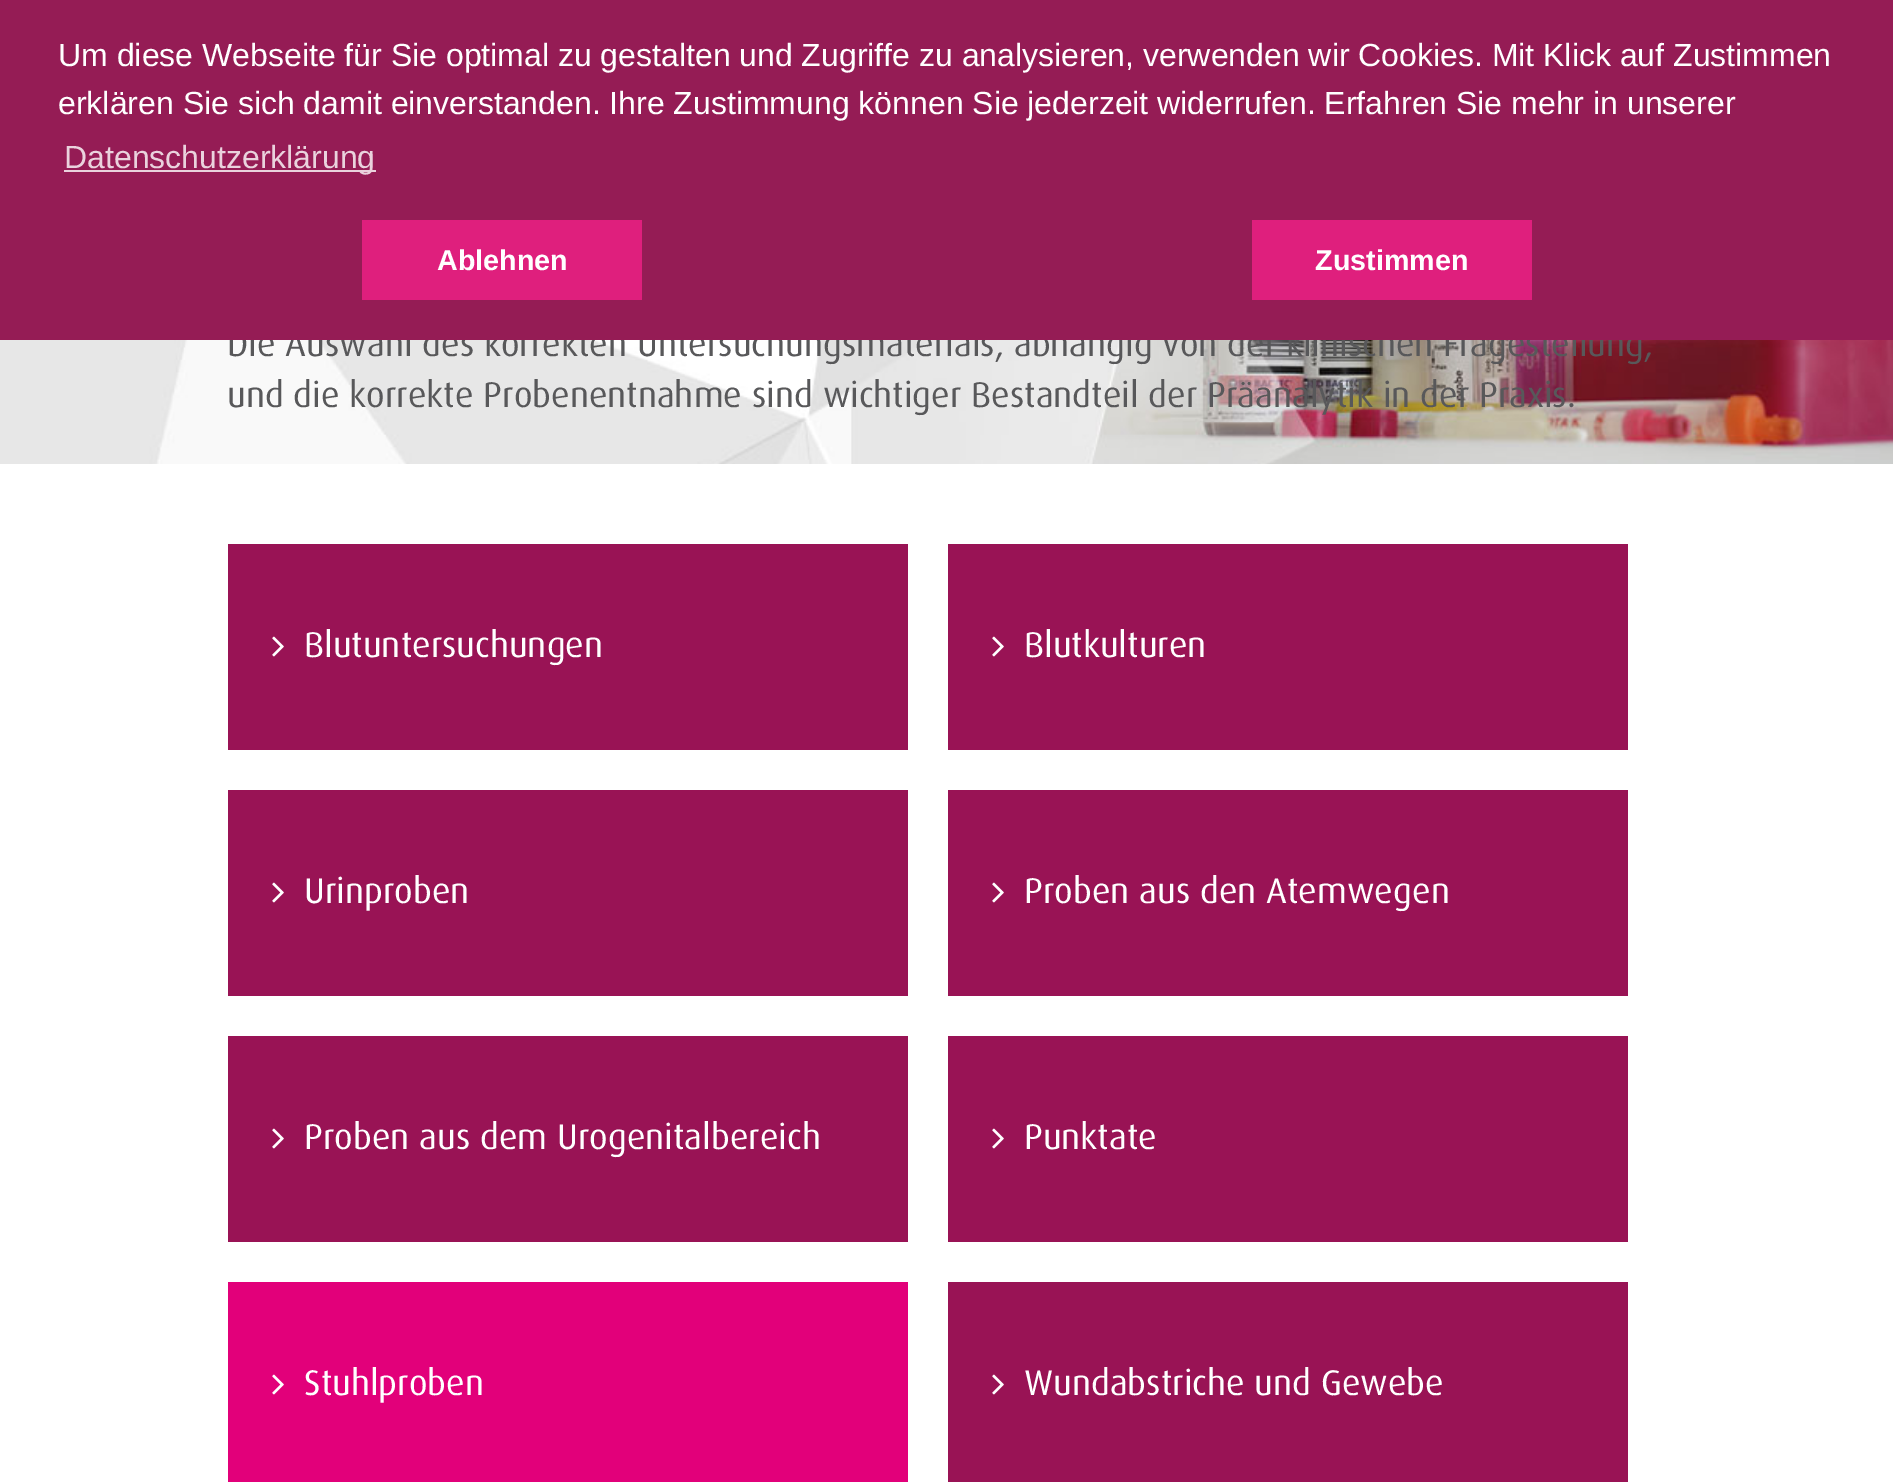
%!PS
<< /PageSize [1893 1482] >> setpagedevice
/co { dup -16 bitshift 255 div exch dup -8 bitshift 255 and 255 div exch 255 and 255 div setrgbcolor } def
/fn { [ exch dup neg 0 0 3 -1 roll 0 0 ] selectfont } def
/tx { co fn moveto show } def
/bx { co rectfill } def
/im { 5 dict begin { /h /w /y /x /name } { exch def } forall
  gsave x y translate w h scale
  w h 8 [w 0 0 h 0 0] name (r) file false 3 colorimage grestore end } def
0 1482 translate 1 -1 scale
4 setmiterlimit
0 0 1893 1482 16#FFFFFF bx
(media/1.raw) 0 340 1893 124 im
228 544 680 206 16#991355 bx
(media/2.raw) 272 636 12 21 im
948 544 680 206 16#991355 bx
(media/2.raw) 992 636 12 21 im
228 790 680 206 16#991355 bx
(media/2.raw) 272 882 12 21 im
948 790 680 206 16#991355 bx
(media/2.raw) 992 882 12 21 im
228 1036 680 206 16#991355 bx
(media/2.raw) 272 1128 12 21 im
948 1036 680 206 16#991355 bx
(media/2.raw) 992 1128 12 21 im
228 1282 680 200 16#E2007A bx
(media/3.raw) 272 1374 12 21 im
948 1282 680 200 16#991355 bx
(media/2.raw) 992 1374 12 21 im
(Die Auswahl des korrekten Untersuchungsmaterials, abhängig von der klinischen Fragestellung,) 227 356 /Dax-Regular 35.7 16#58585A tx
0 0 1893 340 16#951C55 bx
64 170 312 2 16#EAD2DD bx
(Datenschutzerklärung) 64 168 /LiberationSans-Regular 32 16#EAD2DD tx
1252 220 280 80 16#DF1F7D bx
(Zustimmen) 1315 270 /LiberationSans-Bold 28.75 16#FFFFFF tx
362 220 280 80 16#DF1F7D bx
(Ablehnen) 437 270 /LiberationSans-Bold 28.75 16#FFFFFF tx
(erklären Sie sich damit einverstanden. Ihre Zustimmung können Sie jederzeit widerrufen. Erfahren Sie mehr in unserer) 58 114 /LiberationSans-Regular 32 16#FFFFFF tx
(Um diese Webseite für Sie optimal zu gestalten und Zugriffe zu analysieren, verwenden wir Cookies. Mit Klick auf Zustimmen) 58 66 /LiberationSans-Regular 32 16#FFFFFF tx
(und die korrekte Probenentnahme sind wichtiger Bestandteil der Präanalytik in der Praxis.) 227 407 /Dax-Regular 35.7 16#58585A tx
(Blutuntersuchungen) 304 657 /Dax-Regular 35.7 16#FFFFFF tx
(Blutkulturen) 1024 657 /Dax-Regular 35.7 16#FFFFFF tx
(Urinproben) 304 903 /Dax-Regular 35.7 16#FFFFFF tx
(Proben aus den Atemwegen) 1024 903 /Dax-Regular 35.7 16#FFFFFF tx
(Proben aus dem Urogenitalbereich) 304 1149 /Dax-Regular 35.7 16#FFFFFF tx
(Punktate) 1024 1149 /Dax-Regular 35.7 16#FFFFFF tx
(Stuhlproben) 304 1395 /Dax-Regular 35.7 16#FFFFFF tx
(Wundabstriche und Gewebe) 1024 1395 /Dax-Regular 35.7 16#FFFFFF tx
showpage
